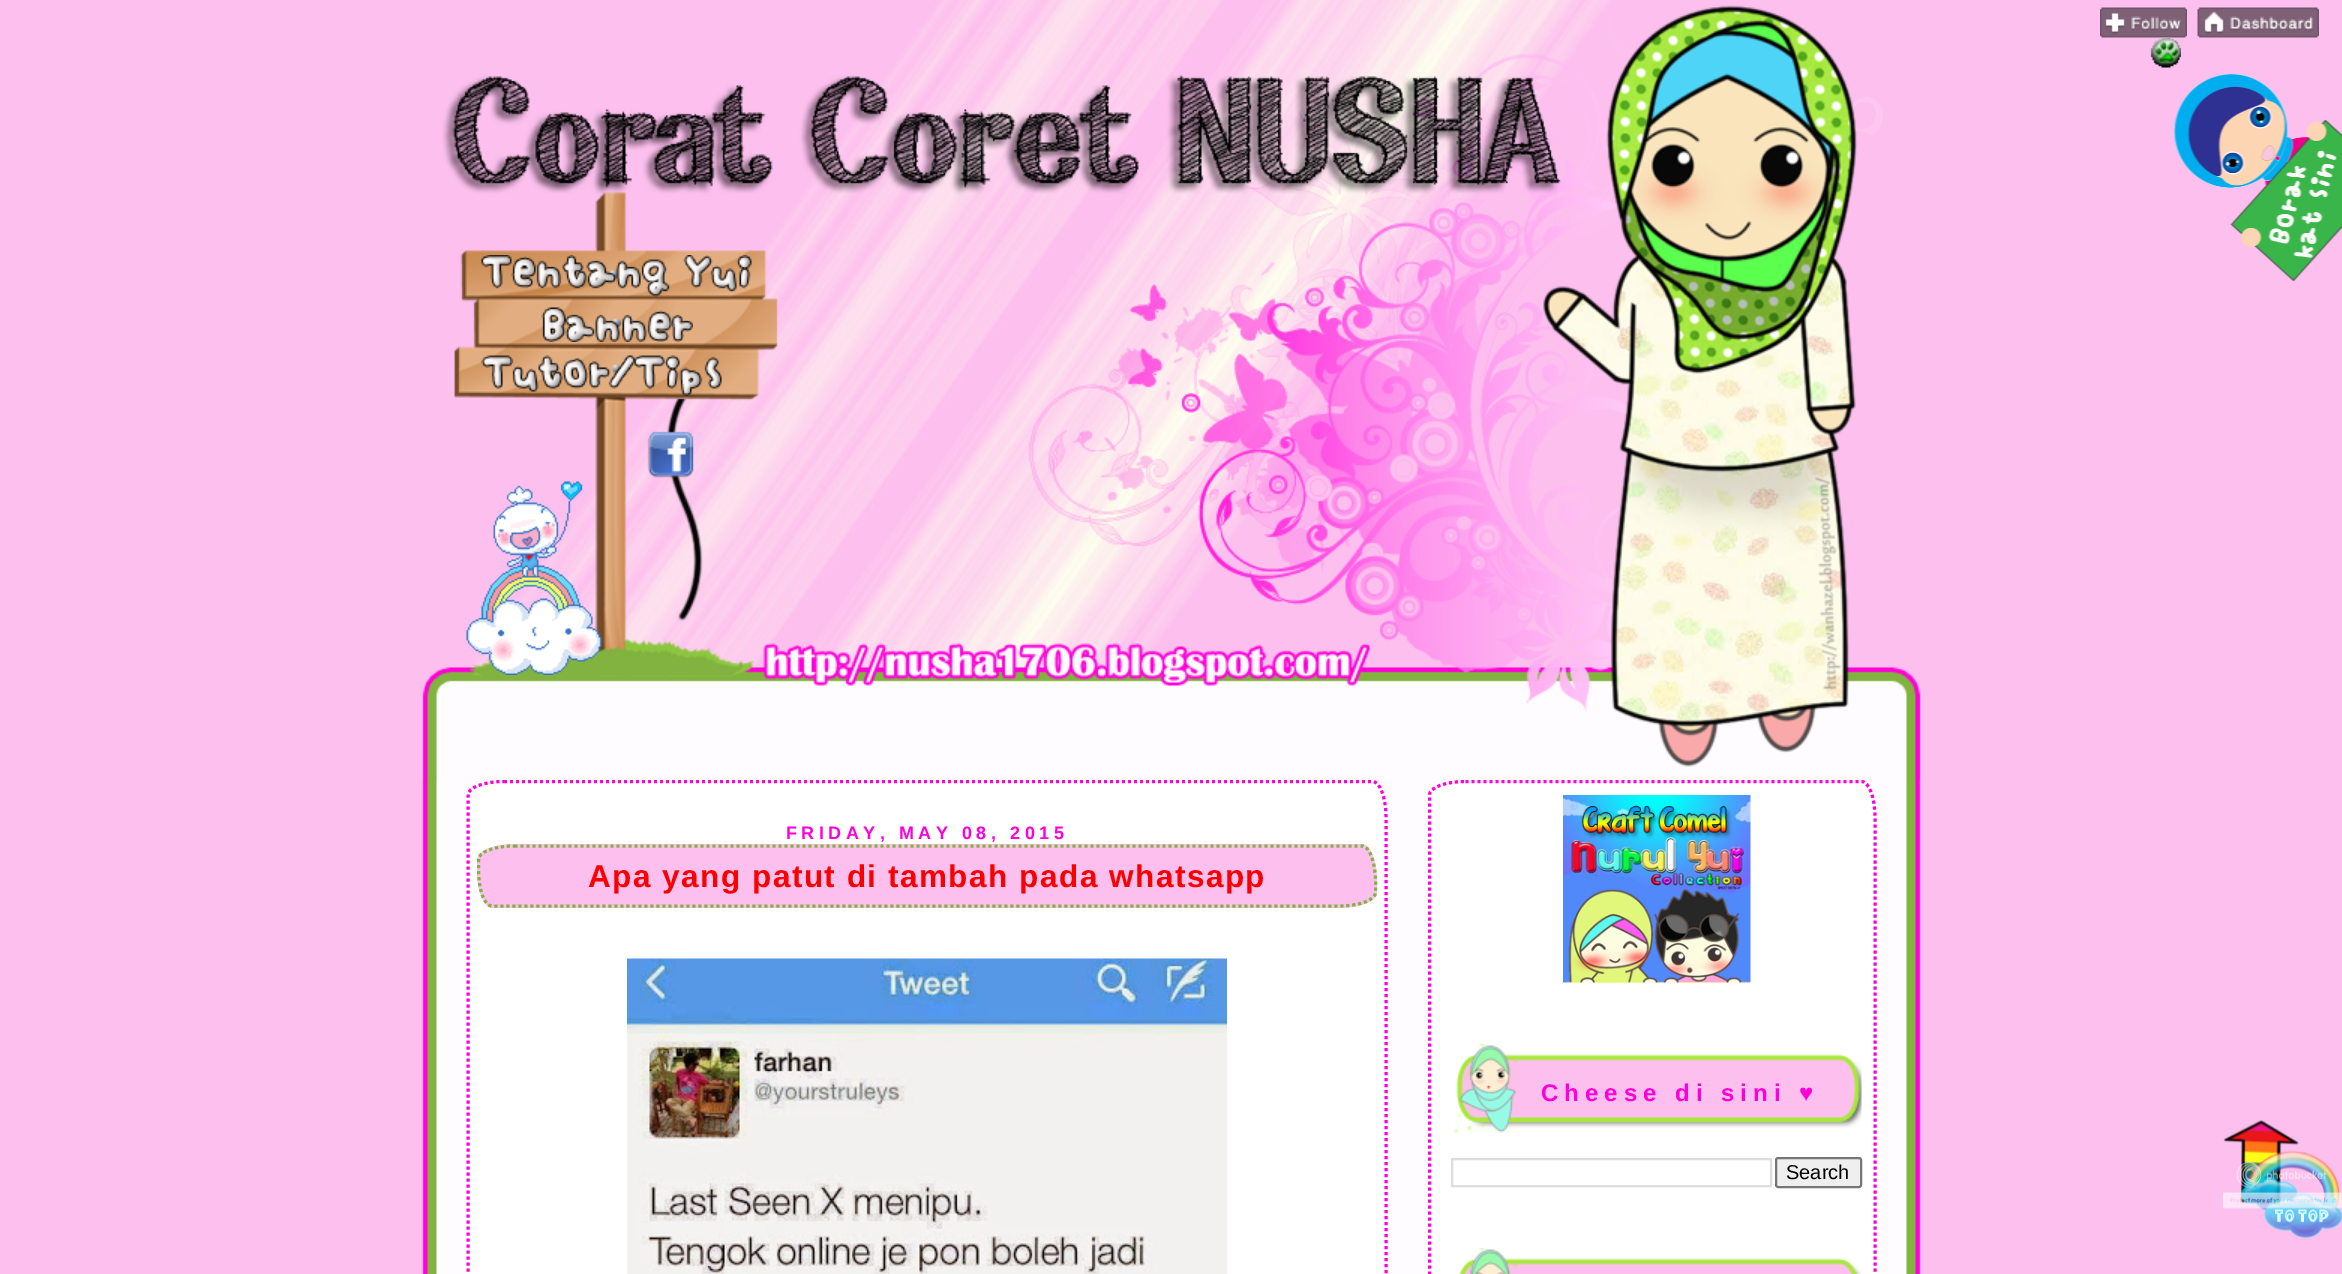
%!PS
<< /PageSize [2342 1274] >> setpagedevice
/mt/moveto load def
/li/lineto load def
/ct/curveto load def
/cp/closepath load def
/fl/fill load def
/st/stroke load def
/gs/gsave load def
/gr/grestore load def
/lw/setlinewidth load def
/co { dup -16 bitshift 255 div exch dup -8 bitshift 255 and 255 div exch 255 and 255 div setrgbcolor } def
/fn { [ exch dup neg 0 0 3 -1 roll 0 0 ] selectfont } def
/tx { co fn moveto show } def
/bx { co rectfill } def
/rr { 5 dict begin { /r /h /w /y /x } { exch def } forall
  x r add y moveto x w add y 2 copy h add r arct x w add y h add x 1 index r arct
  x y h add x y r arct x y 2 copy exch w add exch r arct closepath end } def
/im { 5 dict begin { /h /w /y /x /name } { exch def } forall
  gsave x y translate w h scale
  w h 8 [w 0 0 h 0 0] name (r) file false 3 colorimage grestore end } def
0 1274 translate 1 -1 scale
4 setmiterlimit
0 0 2342 1274 16#FDC0EE bx
(media/1.raw) 422 780 1499 494 im
(media/2.raw) 422 0 1499 780 im
(media/3.raw) 481 255 271 42 im
(media/4.raw) 541 307 152 35 im
(media/5.raw) 481 355 241 41 im
(media/6.raw) 647 431 47 47 im
(media/7.raw) 466 481 136 194 im
(media/11.raw) 2100 7 87 31 im
(media/8.raw) 2150 37 31 31 im
(media/9.raw) 2173 74 169 207 im
16#FFFFFF co
504 780 mt 1372 780 li 1381 780 1388 797 1388 818 ct 1388 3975 li 1388 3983 1371 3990 1350 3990 ct 482 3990 li 473 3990 466 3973 466 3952 ct 466 795 li 466 787 483 780 504 780 ct cp fl
16#FF00D8 co
3 lw
[3 3] 0 setdash
504 781.5 mt 1372.5 781.5 li 1380 781.5 1386 797.5 1386 817.5 ct 1386 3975 li 1386 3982.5 1370 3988.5 1350 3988.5 ct 481.5 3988.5 li 474 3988.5 468 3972.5 468 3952.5 ct 468 795 li 468 787.5 484 781.5 504 781.5 ct cp st
16#FDC0EE co
514 844 mt 1362 844 li 1370 844 1377 861 1377 882 ct 1377 892 li 1377 901 1360 908 1340 908 ct 492 908 li 484 908 477 891 477 870 ct 477 860 li 477 851 494 844 514 844 ct cp fl
16#82B240 co
514.5 846 mt 1362 846 li 1369.5 846 1375.5 862 1375.5 882 ct 1375.5 892.5 li 1375.5 900 1359.5 906 1339.5 906 ct 492 906 li 484.5 906 478.5 890 478.5 870 ct 478.5 859.5 li 478.5 852 494.5 846 514.5 846 ct cp st
(media/10.raw) 627 958 600 316 im
16#FFFFFF co
1466 780 mt 1862 780 li 1870 780 1876 797 1876 818 ct 1876 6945 li 1876 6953 1860 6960 1839 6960 ct 1443 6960 li 1435 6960 1428 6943 1428 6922 ct 1428 795 li 1428 787 1445 780 1466 780 ct cp fl
16#FF00D8 co
1465.5 781.5 mt 1861.5 781.5 li 1869 781.5 1875 797.5 1875 817.5 ct 1875 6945 li 1875 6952.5 1859 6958.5 1839 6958.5 ct 1443 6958.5 li 1435.5 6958.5 1429.5 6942.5 1429.5 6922.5 ct 1429.5 795 li 1429.5 787.5 1445.5 781.5 1465.5 781.5 ct cp st
(media/12.raw) 2197 7 122 31 im
(media/13.raw) 1563 795 188 188 im
(media/14.raw) 1453 1044 409 89 im
16#DDDDDD co
2 lw
[] 0 setdash
1452 1159 319 27 rectstroke
16#EFEFEF co
1776 1158 85 29 2 rr gs fl gr
16#767676 co
st
(media/15.raw) 1459 1248 402 26 im
(media/16.raw) 2223 1120 119 119 im
/LiberationSans-Bold 18 fn
16#FF00D8 co
786 839 mt 4.5 0 (FRIDAY, MAY 08, 2015) ashow
/LiberationSans-Bold 31.5 fn
16#FA0000 co
588 887 mt 1.5 0 (Apa yang patut di tambah pada whatsapp) ashow
/LiberationSans-Bold 24 fn
16#FF00D8 co
1541 1101 mt 6 0 (Cheese di sini ♥) ashow
(Search) 1786 1179 /LiberationSans-Regular 20 16#000000 tx
showpage
